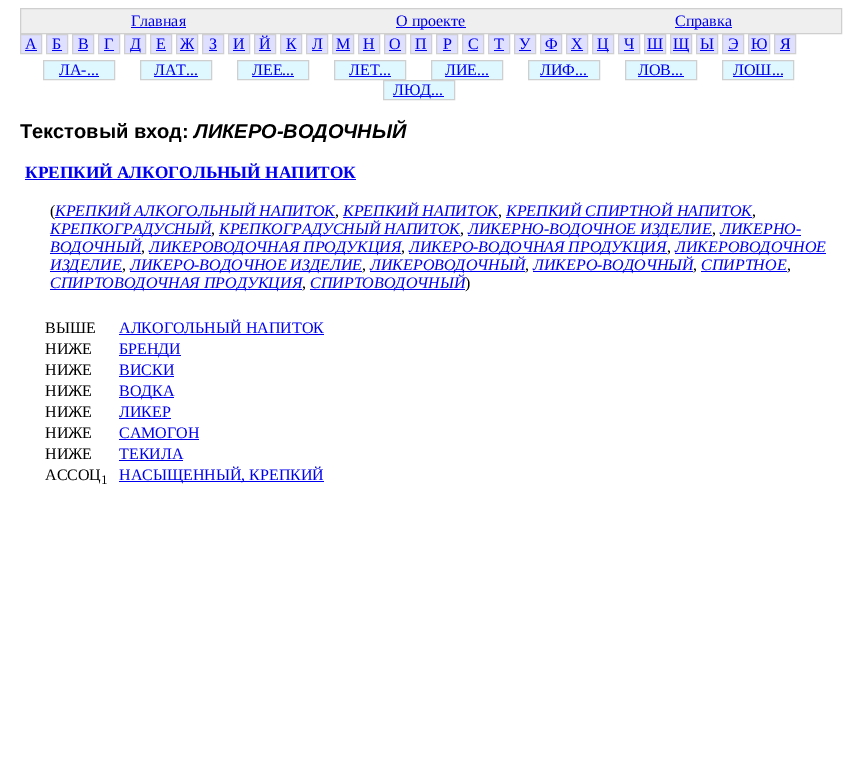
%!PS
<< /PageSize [862 757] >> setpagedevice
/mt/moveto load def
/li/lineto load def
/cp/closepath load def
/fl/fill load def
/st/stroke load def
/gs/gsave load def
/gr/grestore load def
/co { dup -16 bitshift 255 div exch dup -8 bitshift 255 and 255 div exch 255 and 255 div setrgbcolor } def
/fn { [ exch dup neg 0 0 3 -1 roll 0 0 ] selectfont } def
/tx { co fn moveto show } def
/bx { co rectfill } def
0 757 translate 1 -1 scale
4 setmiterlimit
0 0 862 757 16#FFFFFF bx
16#EFEFEF co
20.5 8.5 mt 841.5 8.5 li 841.5 33.5 li 20.5 33.5 li cp gs fl gr
16#CFCFCF co
st
131 27 55 1 16#0000EE bx
396 27 70 1 16#0000EE bx
675 27 57 1 16#0000EE bx
16#DFDFFF co
20.5 34.5 mt 41.5 34.5 li 41.5 53.5 li 20.5 53.5 li cp gs fl gr
16#CFCFCF co
st
25 50 12 1 16#0000EE bx
16#DFDFFF co
46.5 34.5 mt 67.5 34.5 li 67.5 53.5 li 46.5 53.5 li cp gs fl gr
16#CFCFCF co
st
52 50 10 1 16#0000EE bx
16#DFDFFF co
72.5 34.5 mt 93.5 34.5 li 93.5 53.5 li 72.5 53.5 li cp gs fl gr
16#CFCFCF co
st
78 50 10 1 16#0000EE bx
16#DFDFFF co
98.5 34.5 mt 119.5 34.5 li 119.5 53.5 li 98.5 53.5 li cp gs fl gr
16#CFCFCF co
st
104 50 10 1 16#0000EE bx
16#DFDFFF co
124.5 34.5 mt 145.5 34.5 li 145.5 53.5 li 124.5 53.5 li cp gs fl gr
16#CFCFCF co
st
130 50 10 1 16#0000EE bx
16#DFDFFF co
150.5 34.5 mt 171.5 34.5 li 171.5 53.5 li 150.5 53.5 li cp gs fl gr
16#CFCFCF co
st
156 50 10 1 16#0000EE bx
16#DFDFFF co
176.5 34.5 mt 197.5 34.5 li 197.5 53.5 li 176.5 53.5 li cp gs fl gr
16#CFCFCF co
st
180 50 14 1 16#0000EE bx
16#DFDFFF co
202.5 34.5 mt 223.5 34.5 li 223.5 53.5 li 202.5 53.5 li cp gs fl gr
16#CFCFCF co
st
209 50 8 1 16#0000EE bx
16#DFDFFF co
228.5 34.5 mt 249.5 34.5 li 249.5 53.5 li 228.5 53.5 li cp gs fl gr
16#CFCFCF co
st
233 50 12 1 16#0000EE bx
16#DFDFFF co
254.5 34.5 mt 275.5 34.5 li 275.5 53.5 li 254.5 53.5 li cp gs fl gr
16#CFCFCF co
st
259 50 12 1 16#0000EE bx
16#DFDFFF co
280.5 34.5 mt 301.5 34.5 li 301.5 53.5 li 280.5 53.5 li cp gs fl gr
16#CFCFCF co
st
286 50 10 1 16#0000EE bx
16#DFDFFF co
306.5 34.5 mt 327.5 34.5 li 327.5 53.5 li 306.5 53.5 li cp gs fl gr
16#CFCFCF co
st
312 50 10 1 16#0000EE bx
16#DFDFFF co
332.5 34.5 mt 353.5 34.5 li 353.5 53.5 li 332.5 53.5 li cp gs fl gr
16#CFCFCF co
st
336 50 14 1 16#0000EE bx
16#DFDFFF co
358.5 34.5 mt 379.5 34.5 li 379.5 53.5 li 358.5 53.5 li cp gs fl gr
16#CFCFCF co
st
363 50 12 1 16#0000EE bx
16#DFDFFF co
384.5 34.5 mt 405.5 34.5 li 405.5 53.5 li 384.5 53.5 li cp gs fl gr
16#CFCFCF co
st
389 50 12 1 16#0000EE bx
16#DFDFFF co
410.5 34.5 mt 431.5 34.5 li 431.5 53.5 li 410.5 53.5 li cp gs fl gr
16#CFCFCF co
st
415 50 12 1 16#0000EE bx
16#DFDFFF co
436.5 34.5 mt 457.5 34.5 li 457.5 53.5 li 436.5 53.5 li cp gs fl gr
16#CFCFCF co
st
443 50 8 1 16#0000EE bx
16#DFDFFF co
462.5 34.5 mt 483.5 34.5 li 483.5 53.5 li 462.5 53.5 li cp gs fl gr
16#CFCFCF co
st
468 50 10 1 16#0000EE bx
16#DFDFFF co
488.5 34.5 mt 509.5 34.5 li 509.5 53.5 li 488.5 53.5 li cp gs fl gr
16#CFCFCF co
st
494 50 10 1 16#0000EE bx
16#DFDFFF co
514.5 34.5 mt 535.5 34.5 li 535.5 53.5 li 514.5 53.5 li cp gs fl gr
16#CFCFCF co
st
519 50 12 1 16#0000EE bx
16#DFDFFF co
540.5 34.5 mt 561.5 34.5 li 561.5 53.5 li 540.5 53.5 li cp gs fl gr
16#CFCFCF co
st
545 50 12 1 16#0000EE bx
16#DFDFFF co
566.5 34.5 mt 587.5 34.5 li 587.5 53.5 li 566.5 53.5 li cp gs fl gr
16#CFCFCF co
st
571 50 12 1 16#0000EE bx
16#DFDFFF co
592.5 34.5 mt 613.5 34.5 li 613.5 53.5 li 592.5 53.5 li cp gs fl gr
16#CFCFCF co
st
597 50 12 1 16#0000EE bx
16#DFDFFF co
618.5 34.5 mt 639.5 34.5 li 639.5 53.5 li 618.5 53.5 li cp gs fl gr
16#CFCFCF co
st
624 50 10 1 16#0000EE bx
16#DFDFFF co
644.5 34.5 mt 665.5 34.5 li 665.5 53.5 li 644.5 53.5 li cp gs fl gr
16#CFCFCF co
st
647 50 16 1 16#0000EE bx
16#DFDFFF co
670.5 34.5 mt 691.5 34.5 li 691.5 53.5 li 670.5 53.5 li cp gs fl gr
16#CFCFCF co
st
673 50 16 1 16#0000EE bx
16#DFDFFF co
696.5 34.5 mt 717.5 34.5 li 717.5 53.5 li 696.5 53.5 li cp gs fl gr
16#CFCFCF co
st
700 50 14 1 16#0000EE bx
16#DFDFFF co
722.5 34.5 mt 743.5 34.5 li 743.5 53.5 li 722.5 53.5 li cp gs fl gr
16#CFCFCF co
st
728 50 10 1 16#0000EE bx
16#DFDFFF co
748.5 34.5 mt 769.5 34.5 li 769.5 53.5 li 748.5 53.5 li cp gs fl gr
16#CFCFCF co
st
751 50 16 1 16#0000EE bx
16#DFDFFF co
774.5 34.5 mt 795.5 34.5 li 795.5 53.5 li 774.5 53.5 li cp gs fl gr
16#CFCFCF co
st
780 50 10 1 16#0000EE bx
16#DFF7FF co
43.5 60.5 mt 114.5 60.5 li 114.5 79.5 li 43.5 79.5 li cp gs fl gr
16#CFCFCF co
st
59 76 40 1 16#0000EE bx
16#DFF7FF co
140.5 60.5 mt 211.5 60.5 li 211.5 79.5 li 140.5 79.5 li cp gs fl gr
16#CFCFCF co
st
154 76 44 1 16#0000EE bx
16#DFF7FF co
237.5 60.5 mt 308.5 60.5 li 308.5 79.5 li 237.5 79.5 li cp gs fl gr
16#CFCFCF co
st
252 76 42 1 16#0000EE bx
16#DFF7FF co
334.5 60.5 mt 405.5 60.5 li 405.5 79.5 li 334.5 79.5 li cp gs fl gr
16#CFCFCF co
st
349 76 42 1 16#0000EE bx
16#DFF7FF co
431.5 60.5 mt 502.5 60.5 li 502.5 79.5 li 431.5 79.5 li cp gs fl gr
16#CFCFCF co
st
445 76 44 1 16#0000EE bx
16#DFF7FF co
528.5 60.5 mt 599.5 60.5 li 599.5 79.5 li 528.5 79.5 li cp gs fl gr
16#CFCFCF co
st
540 76 48 1 16#0000EE bx
16#DFF7FF co
625.5 60.5 mt 696.5 60.5 li 696.5 79.5 li 625.5 79.5 li cp gs fl gr
16#CFCFCF co
st
638 76 46 1 16#0000EE bx
16#DFF7FF co
722.5 60.5 mt 793.5 60.5 li 793.5 79.5 li 722.5 79.5 li cp gs fl gr
16#CFCFCF co
st
733 76 50 1 16#0000EE bx
16#DFF7FF co
383.5 80.5 mt 454.5 80.5 li 454.5 99.5 li 383.5 99.5 li cp gs fl gr
16#CFCFCF co
st
393 96 51 1 16#0000EE bx
25 179 331 1 16#0000EE bx
55 217 280 1 16#0000EE bx
343 217 155 1 16#0000EE bx
506 217 246 1 16#0000EE bx
50 235 161 1 16#0000EE bx
219 235 241 1 16#0000EE bx
468 235 244 1 16#0000EE bx
720 235 81 1 16#0000EE bx
50 253 91 1 16#0000EE bx
149 253 252 1 16#0000EE bx
409 253 258 1 16#0000EE bx
675 253 151 1 16#0000EE bx
50 271 72 1 16#0000EE bx
130 271 232 1 16#0000EE bx
370 271 155 1 16#0000EE bx
533 271 160 1 16#0000EE bx
701 271 86 1 16#0000EE bx
50 289 252 1 16#0000EE bx
310 289 155 1 16#0000EE bx
119 334 205 1 16#0000EE bx
119 355 62 1 16#0000EE bx
119 376 55 1 16#0000EE bx
119 397 55 1 16#0000EE bx
119 418 52 1 16#0000EE bx
119 439 80 1 16#0000EE bx
119 460 64 1 16#0000EE bx
119 481 205 1 16#0000EE bx
(Главная) 131 26 /LiberationSerif-Regular 16 16#0000EE tx
(О проекте) 396 26 /LiberationSerif-Regular 16 16#0000EE tx
(Справка) 675 26 /LiberationSerif-Regular 16 16#0000EE tx
(А) 25 49 /LiberationSerif-Regular 16 16#0000EE tx
(Б) 52 49 /LiberationSerif-Regular 16 16#0000EE tx
(В) 78 49 /LiberationSerif-Regular 16 16#0000EE tx
(Г) 104 49 /LiberationSerif-Regular 16 16#0000EE tx
(Д) 130 49 /LiberationSerif-Regular 16 16#0000EE tx
(Е) 156 49 /LiberationSerif-Regular 16 16#0000EE tx
(Ж) 180 49 /LiberationSerif-Regular 16 16#0000EE tx
(З) 209 49 /LiberationSerif-Regular 16 16#0000EE tx
(И) 233 49 /LiberationSerif-Regular 16 16#0000EE tx
(Й) 259 49 /LiberationSerif-Regular 16 16#0000EE tx
(К) 286 49 /LiberationSerif-Regular 16 16#0000EE tx
(Л) 312 49 /LiberationSerif-Regular 16 16#0000EE tx
(М) 336 49 /LiberationSerif-Regular 16 16#0000EE tx
(Н) 363 49 /LiberationSerif-Regular 16 16#0000EE tx
(О) 389 49 /LiberationSerif-Regular 16 16#0000EE tx
(П) 415 49 /LiberationSerif-Regular 16 16#0000EE tx
(Р) 443 49 /LiberationSerif-Regular 16 16#0000EE tx
(С) 468 49 /LiberationSerif-Regular 16 16#0000EE tx
(Т) 494 49 /LiberationSerif-Regular 16 16#0000EE tx
(У) 519 49 /LiberationSerif-Regular 16 16#0000EE tx
(Ф) 545 49 /LiberationSerif-Regular 16 16#0000EE tx
(Х) 571 49 /LiberationSerif-Regular 16 16#0000EE tx
(Ц) 597 49 /LiberationSerif-Regular 16 16#0000EE tx
(Ч) 624 49 /LiberationSerif-Regular 16 16#0000EE tx
(Ш) 647 49 /LiberationSerif-Regular 16 16#0000EE tx
(Щ) 673 49 /LiberationSerif-Regular 16 16#0000EE tx
(Ы) 700 49 /LiberationSerif-Regular 16 16#0000EE tx
(Э) 728 49 /LiberationSerif-Regular 16 16#0000EE tx
(Ю) 751 49 /LiberationSerif-Regular 16 16#0000EE tx
(Я) 780 49 /LiberationSerif-Regular 16 16#0000EE tx
(ЛА-...) 59 75 /LiberationSerif-Regular 16 16#0000EE tx
(ЛАТ...) 154 75 /LiberationSerif-Regular 16 16#0000EE tx
(ЛЕЕ...) 252 75 /LiberationSerif-Regular 16 16#0000EE tx
(ЛЕТ...) 349 75 /LiberationSerif-Regular 16 16#0000EE tx
(ЛИЕ...) 445 75 /LiberationSerif-Regular 16 16#0000EE tx
(ЛИФ...) 540 75 /LiberationSerif-Regular 16 16#0000EE tx
(ЛОВ...) 638 75 /LiberationSerif-Regular 16 16#0000EE tx
(ЛОШ...) 733 75 /LiberationSerif-Regular 16 16#0000EE tx
(ЛЮД...) 393 95 /LiberationSerif-Regular 16 16#0000EE tx
(Текстовый вход:) 20 138 /LiberationSans-Bold 20 16#000000 tx
(ЛИКЕРО-ВОДОЧНЫЙ) 194 138 /LiberationSans-BoldItalic 20 16#000000 tx
(КРЕПКИЙ АЛКОГОЛЬНЫЙ НАПИТОК) 25 178 /LiberationSerif-Bold 17.3 16#0000EE tx
(\() 50 216 /LiberationSerif-Regular 16 16#000000 tx
(КРЕПКИЙ АЛКОГОЛЬНЫЙ НАПИТОК) 55 216 /LiberationSerif-Italic 16 16#0000EE tx
(,) 335 216 /LiberationSerif-Regular 16 16#000000 tx
(КРЕПКИЙ НАПИТОК) 343 216 /LiberationSerif-Italic 16 16#0000EE tx
(,) 498 216 /LiberationSerif-Regular 16 16#000000 tx
(КРЕПКИЙ СПИРТНОЙ НАПИТОК) 506 216 /LiberationSerif-Italic 16 16#0000EE tx
(,) 752 216 /LiberationSerif-Regular 16 16#000000 tx
(КРЕПКОГРАДУСНЫЙ) 50 234 /LiberationSerif-Italic 16 16#0000EE tx
(,) 211 234 /LiberationSerif-Regular 16 16#000000 tx
(КРЕПКОГРАДУСНЫЙ НАПИТОК) 219 234 /LiberationSerif-Italic 16 16#0000EE tx
(,) 460 234 /LiberationSerif-Regular 16 16#000000 tx
(ЛИКЕРНО-ВОДОЧНОЕ ИЗДЕЛИЕ) 468 234 /LiberationSerif-Italic 16 16#0000EE tx
(,) 712 234 /LiberationSerif-Regular 16 16#000000 tx
(ЛИКЕРНО-) 720 234 /LiberationSerif-Italic 16 16#0000EE tx
(ВОДОЧНЫЙ) 50 252 /LiberationSerif-Italic 16 16#0000EE tx
(,) 141 252 /LiberationSerif-Regular 16 16#000000 tx
(ЛИКЕРОВОДОЧНАЯ ПРОДУКЦИЯ) 149 252 /LiberationSerif-Italic 16 16#0000EE tx
(,) 401 252 /LiberationSerif-Regular 16 16#000000 tx
(ЛИКЕРО-ВОДОЧНАЯ ПРОДУКЦИЯ) 409 252 /LiberationSerif-Italic 16 16#0000EE tx
(,) 667 252 /LiberationSerif-Regular 16 16#000000 tx
(ЛИКЕРОВОДОЧНОЕ) 675 252 /LiberationSerif-Italic 16 16#0000EE tx
(ИЗДЕЛИЕ) 50 270 /LiberationSerif-Italic 16 16#0000EE tx
(,) 122 270 /LiberationSerif-Regular 16 16#000000 tx
(ЛИКЕРО-ВОДОЧНОЕ ИЗДЕЛИЕ) 130 270 /LiberationSerif-Italic 16 16#0000EE tx
(,) 362 270 /LiberationSerif-Regular 16 16#000000 tx
(ЛИКЕРОВОДОЧНЫЙ) 370 270 /LiberationSerif-Italic 16 16#0000EE tx
(,) 525 270 /LiberationSerif-Regular 16 16#000000 tx
(ЛИКЕРО-ВОДОЧНЫЙ) 533 270 /LiberationSerif-Italic 16 16#0000EE tx
(,) 693 270 /LiberationSerif-Regular 16 16#000000 tx
(СПИРТНОЕ) 701 270 /LiberationSerif-Italic 16 16#0000EE tx
(,) 787 270 /LiberationSerif-Regular 16 16#000000 tx
(СПИРТОВОДОЧНАЯ ПРОДУКЦИЯ) 50 288 /LiberationSerif-Italic 16 16#0000EE tx
(,) 302 288 /LiberationSerif-Regular 16 16#000000 tx
(СПИРТОВОДОЧНЫЙ) 310 288 /LiberationSerif-Italic 16 16#0000EE tx
(\)) 465 288 /LiberationSerif-Regular 16 16#000000 tx
(ВЫШЕ) 45 333 /LiberationSerif-Regular 16 16#000000 tx
(АЛКОГОЛЬНЫЙ НАПИТОК) 119 333 /LiberationSerif-Regular 16 16#0000EE tx
(НИЖЕ) 45 354 /LiberationSerif-Regular 16 16#000000 tx
(БРЕНДИ) 119 354 /LiberationSerif-Regular 16 16#0000EE tx
(НИЖЕ) 45 375 /LiberationSerif-Regular 16 16#000000 tx
(ВИСКИ) 119 375 /LiberationSerif-Regular 16 16#0000EE tx
(НИЖЕ) 45 396 /LiberationSerif-Regular 16 16#000000 tx
(ВОДКА) 119 396 /LiberationSerif-Regular 16 16#0000EE tx
(НИЖЕ) 45 417 /LiberationSerif-Regular 16 16#000000 tx
(ЛИКЕР) 119 417 /LiberationSerif-Regular 16 16#0000EE tx
(НИЖЕ) 45 438 /LiberationSerif-Regular 16 16#000000 tx
(САМОГОН) 119 438 /LiberationSerif-Regular 16 16#0000EE tx
(НИЖЕ) 45 459 /LiberationSerif-Regular 16 16#000000 tx
(ТЕКИЛА) 119 459 /LiberationSerif-Regular 16 16#0000EE tx
(АССОЦ) 45 480 /LiberationSerif-Regular 16 16#000000 tx
(1) 101 484 /LiberationSerif-Regular 13 16#000000 tx
(НАСЫЩЕННЫЙ, КРЕПКИЙ) 119 480 /LiberationSerif-Regular 16 16#0000EE tx
showpage
